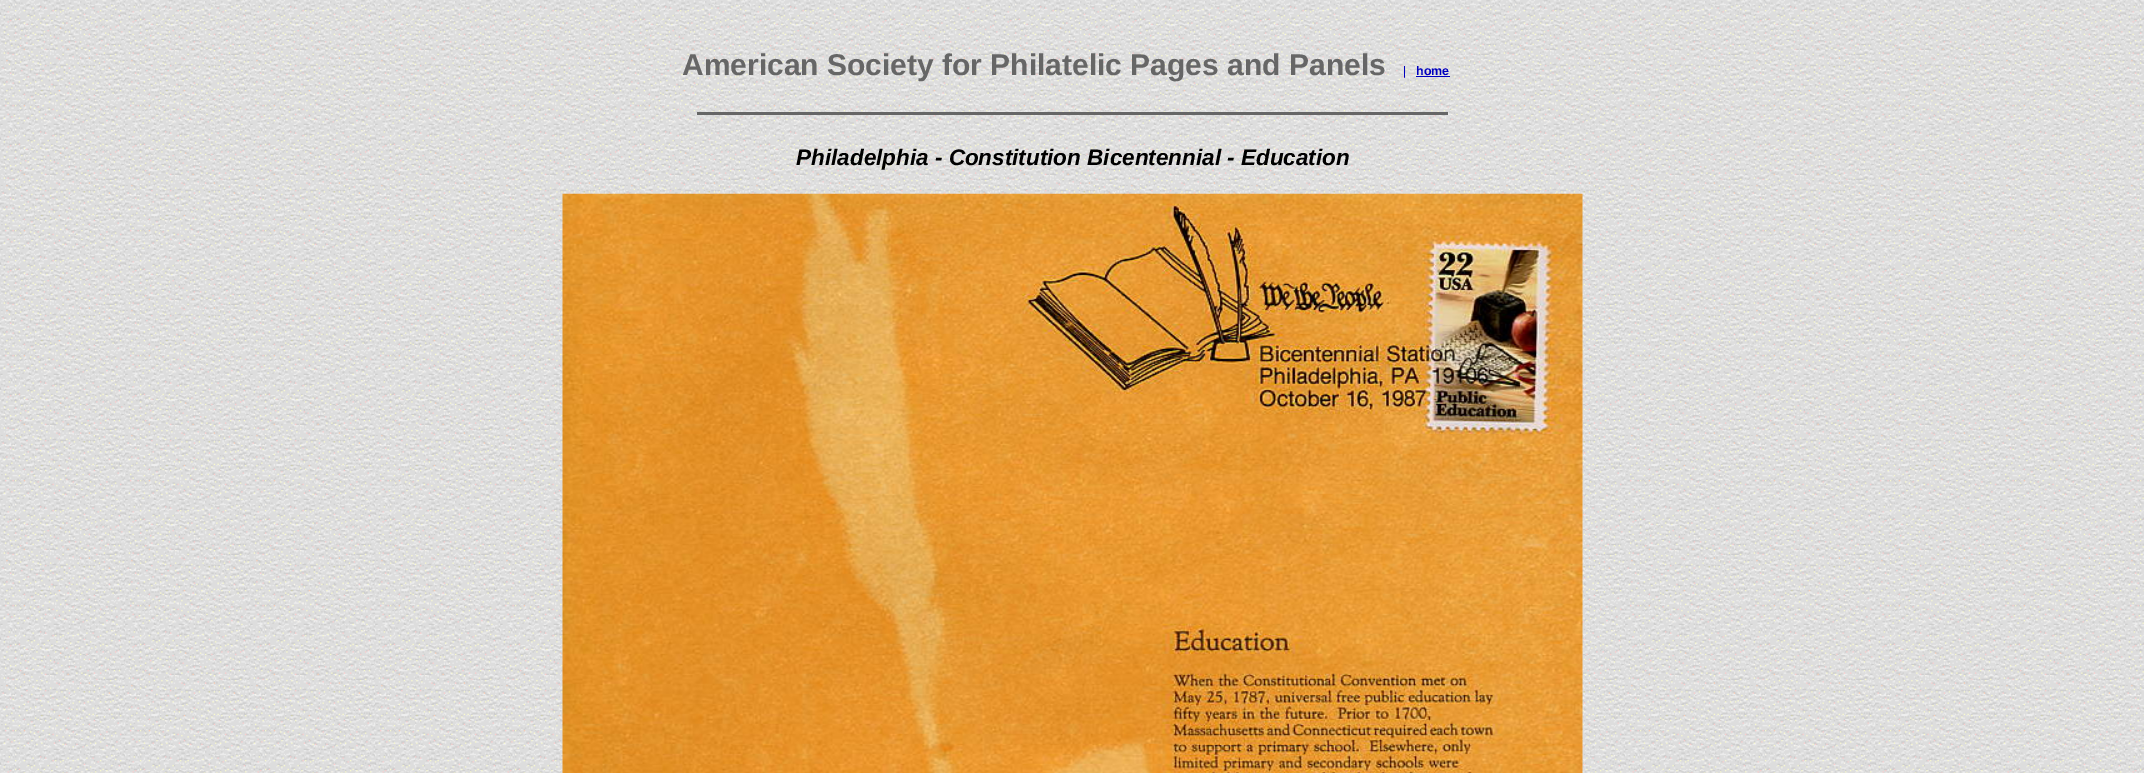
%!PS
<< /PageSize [2144 773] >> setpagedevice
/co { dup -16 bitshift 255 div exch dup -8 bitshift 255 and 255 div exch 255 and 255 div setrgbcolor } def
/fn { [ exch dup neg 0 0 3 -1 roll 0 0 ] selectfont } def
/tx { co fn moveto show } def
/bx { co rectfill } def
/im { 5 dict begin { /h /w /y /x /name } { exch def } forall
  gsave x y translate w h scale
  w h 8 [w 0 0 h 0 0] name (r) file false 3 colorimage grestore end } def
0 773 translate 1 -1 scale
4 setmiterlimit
0 0 2144 773 16#FFFFFF bx
(media/1.raw) 0 0 2144 773 im
1416 76 34 1 16#0000BF bx
697 112 751 3 16#666666 bx
(media/2.raw) 562 193 1021 580 im
(American Society for Philatelic Pages and Panels) 682 75 /LiberationSans-Bold 30 16#666666 tx
(|) 1403 75 /LiberationSans-Regular 12.5 16#0000BF tx
(home) 1416 75 /LiberationSans-Bold 12.5 16#0000BF tx
(Philadelphia - Constitution Bicentennial - Education) 796 165 /LiberationSans-BoldItalic 22.5 16#000000 tx
showpage
